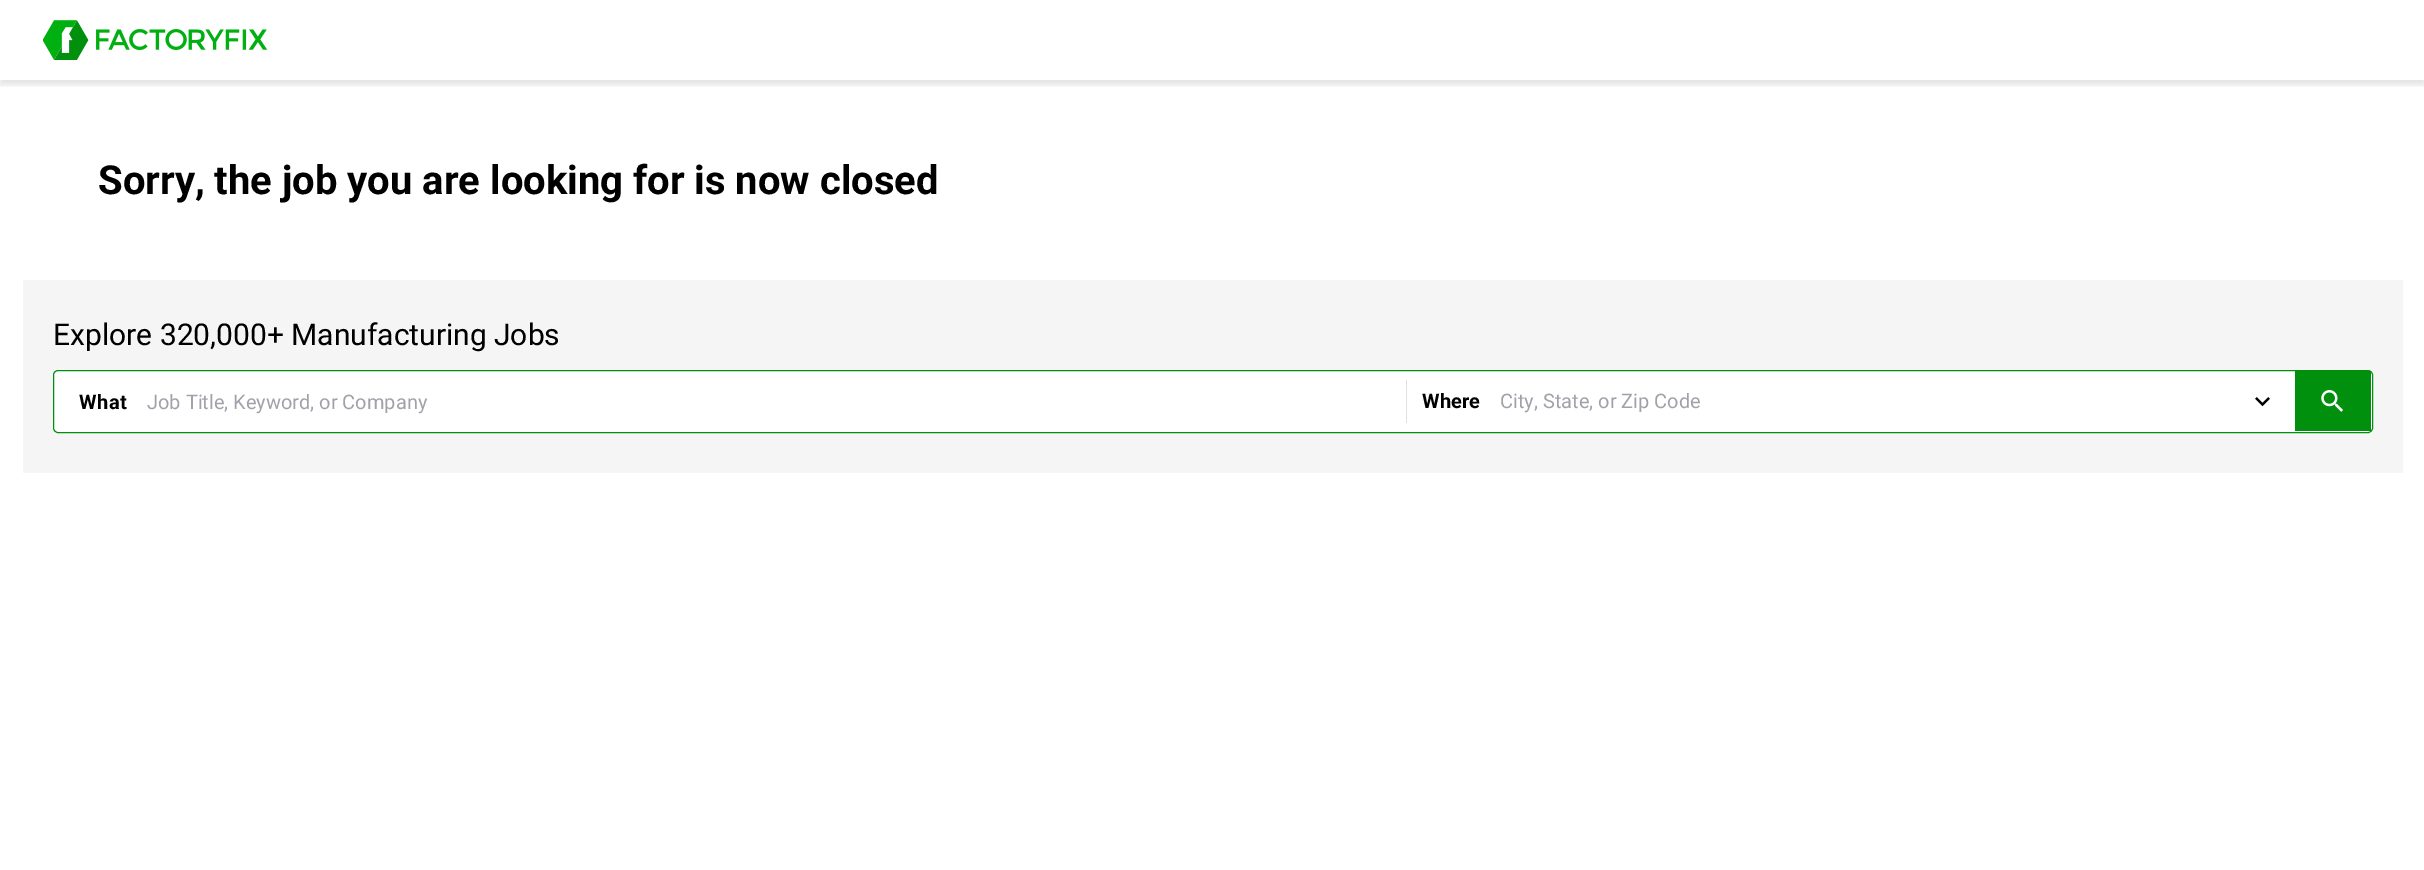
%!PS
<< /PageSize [2424 870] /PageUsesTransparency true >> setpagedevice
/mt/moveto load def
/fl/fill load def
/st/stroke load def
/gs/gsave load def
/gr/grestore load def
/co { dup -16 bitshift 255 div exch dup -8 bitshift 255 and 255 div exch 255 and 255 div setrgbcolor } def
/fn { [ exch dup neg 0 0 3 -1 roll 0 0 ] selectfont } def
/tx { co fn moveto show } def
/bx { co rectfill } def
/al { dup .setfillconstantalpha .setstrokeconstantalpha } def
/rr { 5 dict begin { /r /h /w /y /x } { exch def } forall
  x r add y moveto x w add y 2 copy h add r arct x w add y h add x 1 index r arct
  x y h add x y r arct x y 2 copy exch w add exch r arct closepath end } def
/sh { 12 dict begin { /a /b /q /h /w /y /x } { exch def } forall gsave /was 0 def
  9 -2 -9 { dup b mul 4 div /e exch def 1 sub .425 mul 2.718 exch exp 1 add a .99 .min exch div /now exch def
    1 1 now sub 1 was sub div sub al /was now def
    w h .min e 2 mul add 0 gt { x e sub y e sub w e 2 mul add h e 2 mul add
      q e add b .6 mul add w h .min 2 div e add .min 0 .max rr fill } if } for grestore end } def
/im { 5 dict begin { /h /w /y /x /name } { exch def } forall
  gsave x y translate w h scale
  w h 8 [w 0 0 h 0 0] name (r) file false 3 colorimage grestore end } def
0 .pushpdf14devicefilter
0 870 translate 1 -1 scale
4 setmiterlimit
0 0 2424 870 16#FFFFFF bx
gs
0 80 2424 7 rectclip
16#000000 co
0 5 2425 80 0 2.5 .1 sh
gr
(media/1.raw) 43 20 225 40 im
23 280 2380 193 16#F5F5F5 bx
16#FFFFFF co
53.5 370.5 2319 62 4.5 rr gs fl gr
16#00900D co
st
1406 380 1 43 16#E0E0E0 bx
(media/2.raw) 2255 397 15 9 im
2295 371 76 60 16#00900D bx
(media/3.raw) 2321 390 22 22 im
(Sorry, the job you are looking for is now closed) 98 194 /Roboto-Bold 40 16#000000 tx
(Explore 320,000+ Manufacturing Jobs) 53 345 /Roboto-Regular 30 16#000000 tx
/Roboto-Bold 20 fn
79 409 mt .5 0 (What) ashow
(Job Title, Keyword, or Company) 147 409 /Roboto-Regular 20 16#A1A1AA tx
(Where) 1422 408 /Roboto-Bold 20 16#000000 tx
(City, State, or Zip Code) 1500 408 /Roboto-Regular 20 16#A1A1AA tx
.poppdf14devicefilter showpage
